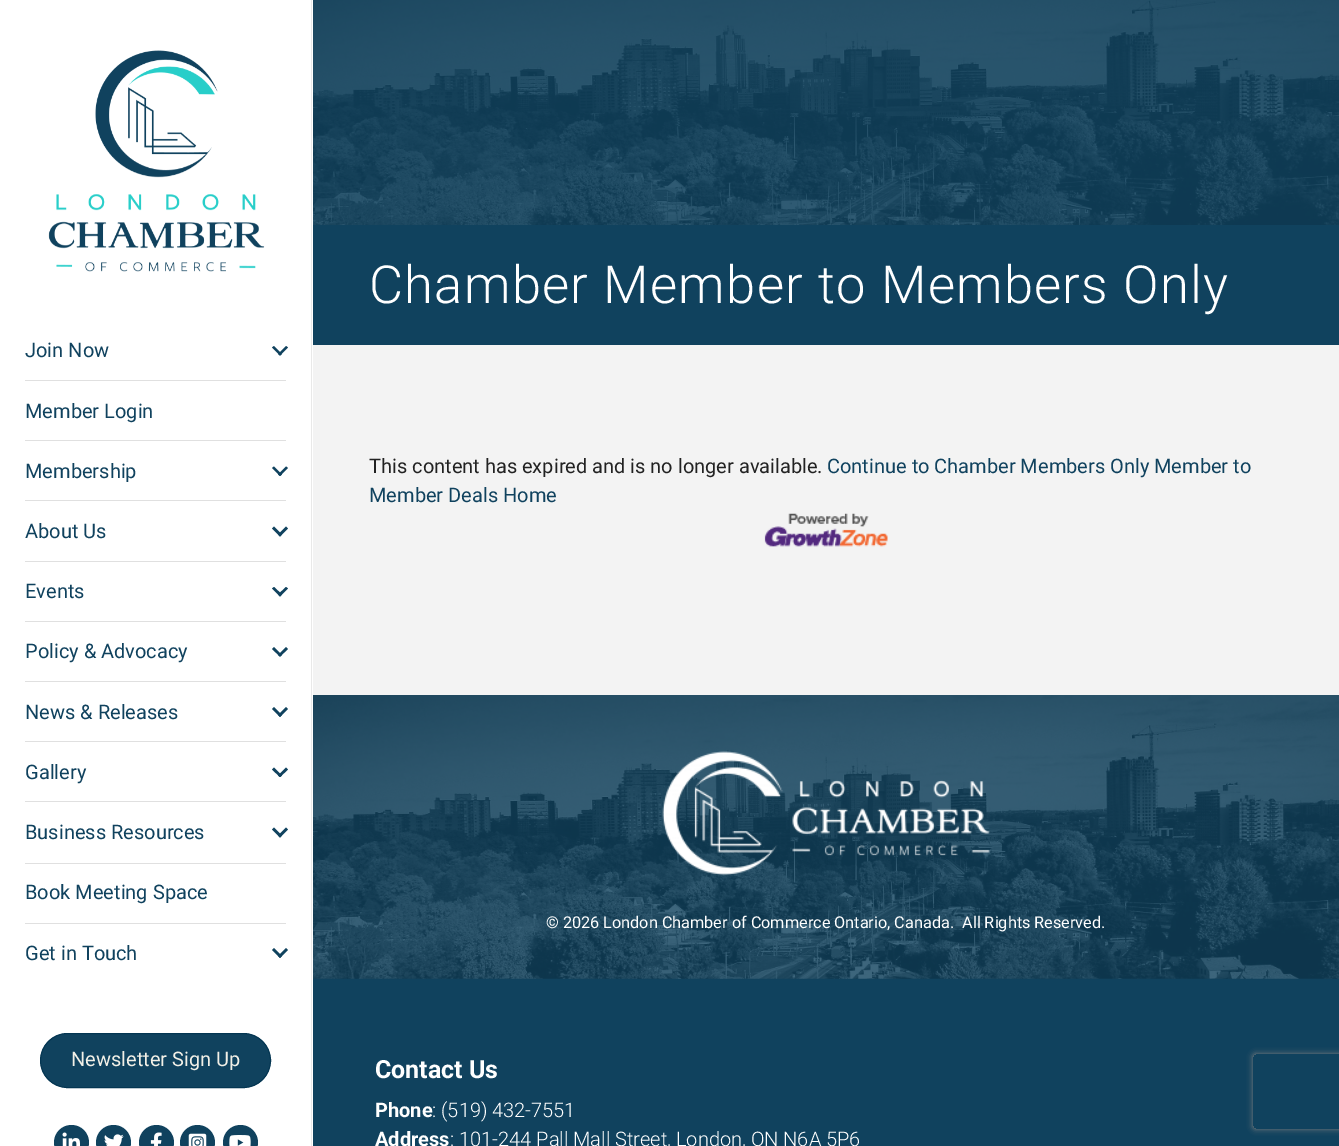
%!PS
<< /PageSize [1339 1146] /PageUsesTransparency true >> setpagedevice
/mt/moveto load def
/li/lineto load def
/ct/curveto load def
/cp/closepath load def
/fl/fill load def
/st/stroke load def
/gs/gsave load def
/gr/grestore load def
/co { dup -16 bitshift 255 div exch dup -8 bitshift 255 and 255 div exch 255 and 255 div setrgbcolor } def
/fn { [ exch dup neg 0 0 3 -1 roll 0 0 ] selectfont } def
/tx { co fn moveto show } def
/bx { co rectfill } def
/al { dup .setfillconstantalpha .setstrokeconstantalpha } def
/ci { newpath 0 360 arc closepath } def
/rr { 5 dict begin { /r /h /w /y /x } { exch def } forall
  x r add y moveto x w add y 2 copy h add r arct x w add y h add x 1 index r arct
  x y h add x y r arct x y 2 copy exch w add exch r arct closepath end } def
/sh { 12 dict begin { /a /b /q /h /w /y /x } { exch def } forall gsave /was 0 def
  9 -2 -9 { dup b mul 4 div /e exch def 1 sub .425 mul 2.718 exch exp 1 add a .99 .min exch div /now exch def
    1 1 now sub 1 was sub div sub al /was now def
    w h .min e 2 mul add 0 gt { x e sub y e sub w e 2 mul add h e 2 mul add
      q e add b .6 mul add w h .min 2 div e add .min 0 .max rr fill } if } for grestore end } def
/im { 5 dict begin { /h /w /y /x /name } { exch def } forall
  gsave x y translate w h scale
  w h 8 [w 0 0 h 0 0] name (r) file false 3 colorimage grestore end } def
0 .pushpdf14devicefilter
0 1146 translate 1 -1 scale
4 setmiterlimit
0 0 1339 1146 16#F3F3F3 bx
0 0 313 1146 16#FFFFFF bx
311 0 1 1146 16#E9E9E9 bx
(media/1.raw) 48 50 217 222 im
16#10425E co
286 346 mt 288 347.5 li 280 355.5 li 278 354 li cp fl
274 346 mt 282 354 li 280 355.5 li 272 347.5 li cp fl
25 380 261 1 16#E0E0E0 bx
25 440 261 1 16#E0E0E0 bx
16#10425E co
286 466.5 mt 288 468 li 280 476 li 278 474.5 li cp fl
274 466.5 mt 282 474.5 li 280 476 li 272 468 li cp fl
25 500 261 1 16#E0E0E0 bx
16#10425E co
286 526.5 mt 288 528.5 li 280 536.5 li 278 534.5 li cp fl
274 526.5 mt 282 534.5 li 280 536.5 li 272 528.5 li cp fl
25 561 261 1 16#E0E0E0 bx
16#10425E co
286 587 mt 288 588.5 li 280 596.5 li 278 594.5 li cp fl
274 587 mt 282 594.5 li 280 596.5 li 272 588.5 li cp fl
25 621 261 1 16#E0E0E0 bx
16#10425E co
286 647 mt 288 649 li 280 656.5 li 278 655 li cp fl
274 647 mt 282 655 li 280 656.5 li 272 649 li cp fl
25 681 261 1 16#E0E0E0 bx
16#10425E co
286 707 mt 288 709 li 280 717 li 278 715 li cp fl
274 707 mt 282 715 li 280 717 li 272 709 li cp fl
25 741 261 1 16#E0E0E0 bx
16#10425E co
286 767.5 mt 288 769.5 li 280 777 li 278 775.5 li cp fl
274 767.5 mt 282 775.5 li 280 777 li 272 769.5 li cp fl
25 801 261 1 16#E0E0E0 bx
16#10425E co
286 827.5 mt 288 829.5 li 280 837.5 li 278 835.5 li cp fl
274 827.5 mt 282 835.5 li 280 837.5 li 272 829.5 li cp fl
25 863 261 1 16#E0E0E0 bx
25 923 261 1 16#E0E0E0 bx
16#10425E co
286 948 mt 288 950 li 280 958 li 278 956 li cp fl
274 948 mt 282 956 li 280 958 li 272 950 li cp fl
40.5 1033.5 230 54 27 rr gs fl gr
16#043652 co
st
16#10425E co
71.5 1142.5 17.5 ci fl
(media/2.raw) 62 1132 18 14 im
113.5 1142.5 17.5 ci fl
(media/3.raw) 104 1134 20 12 im
156.5 1142.5 17.5 ci fl
(media/4.raw) 150 1132 12 14 im
197.5 1142.5 17.5 ci fl
(media/5.raw) 188 1133 19 13 im
240.5 1142.5 17.5 ci fl
(media/6.raw) 229 1135 22 11 im
(media/7.raw) 313 0 1026 225 im
313 225 1026 120 16#10425E bx
(media/8.raw) 764 513 124 34 im
(media/9.raw) 313 695 1026 284 im
(media/10.raw) 662 751 329 125 im
313 979 1026 167 16#10425E bx
gs
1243 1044 mt 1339 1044 li 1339 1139 li 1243 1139 li cp 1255.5 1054 mt 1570.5 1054 li 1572 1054 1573 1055 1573 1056.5 ct 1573 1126.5 li 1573 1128 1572 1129 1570.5 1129 ct 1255.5 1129 li 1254 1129 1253 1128 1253 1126.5 ct 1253 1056.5 li 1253 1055 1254 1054 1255.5 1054 ct cp eoclip newpath
16#808080 co
1253 1054 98 75 2.5 3 1 sh
gr
(Join Now) 25 357 /Roboto-Regular 20 16#10425E tx
(Member Login) 25 418 /Roboto-Regular 20 16#10425E tx
(Membership) 25 478 /Roboto-Regular 20 16#10425E tx
(About Us) 25 538 /Roboto-Regular 20 16#10425E tx
(Events) 25 598 /Roboto-Regular 20 16#10425E tx
(Policy & Advocacy) 25 658 /Roboto-Regular 20 16#10425E tx
(News & Releases) 25 719 /Roboto-Regular 20 16#10425E tx
(Gallery) 25 779 /Roboto-Regular 20 16#10425E tx
(Business Resources) 25 839 /Roboto-Regular 20 16#10425E tx
(Book Meeting Space) 25 899 /Roboto-Regular 20 16#10425E tx
(Get in Touch) 25 960 /Roboto-Regular 20 16#10425E tx
(Newsletter Sign Up) 71 1066 /Roboto-Regular 20 16#F2F0E7 tx
/Roboto-Light 52.5 fn
16#FFFFFF co
369 303 mt 1.25 0 (Chamber Member to Members Only) ashow
(This content has expired and is no longer available.) 369 473 /Roboto-Regular 20 16#222222 tx
(Continue to Chamber Members Only Member to) 827 473 /Roboto-Regular 20 16#10425E tx
(Member Deals Home) 369 502 /Roboto-Regular 20 16#10425E tx
(© 2026 London Chamber of Commerce Ontario, Canada.  All Rights Reserved.) 546 928 /Roboto-Regular 16.25 16#FFFFFF tx
(Contact Us) 375 1078 /Roboto-Bold 25 16#FFFFFF tx
(Phone) 375 1117 /Roboto-Bold 20 16#FFFFFF tx
(: \(519\) 432-7551) 432 1117 /Roboto-Light 20 16#FFFFFF tx
(Address) 375 1146 /Roboto-Bold 20 16#FFFFFF tx
(: 101-244 Pall Mall Street, London, ON N6A 5P6) 450 1146 /Roboto-Light 20 16#FFFFFF tx
.poppdf14devicefilter showpage
